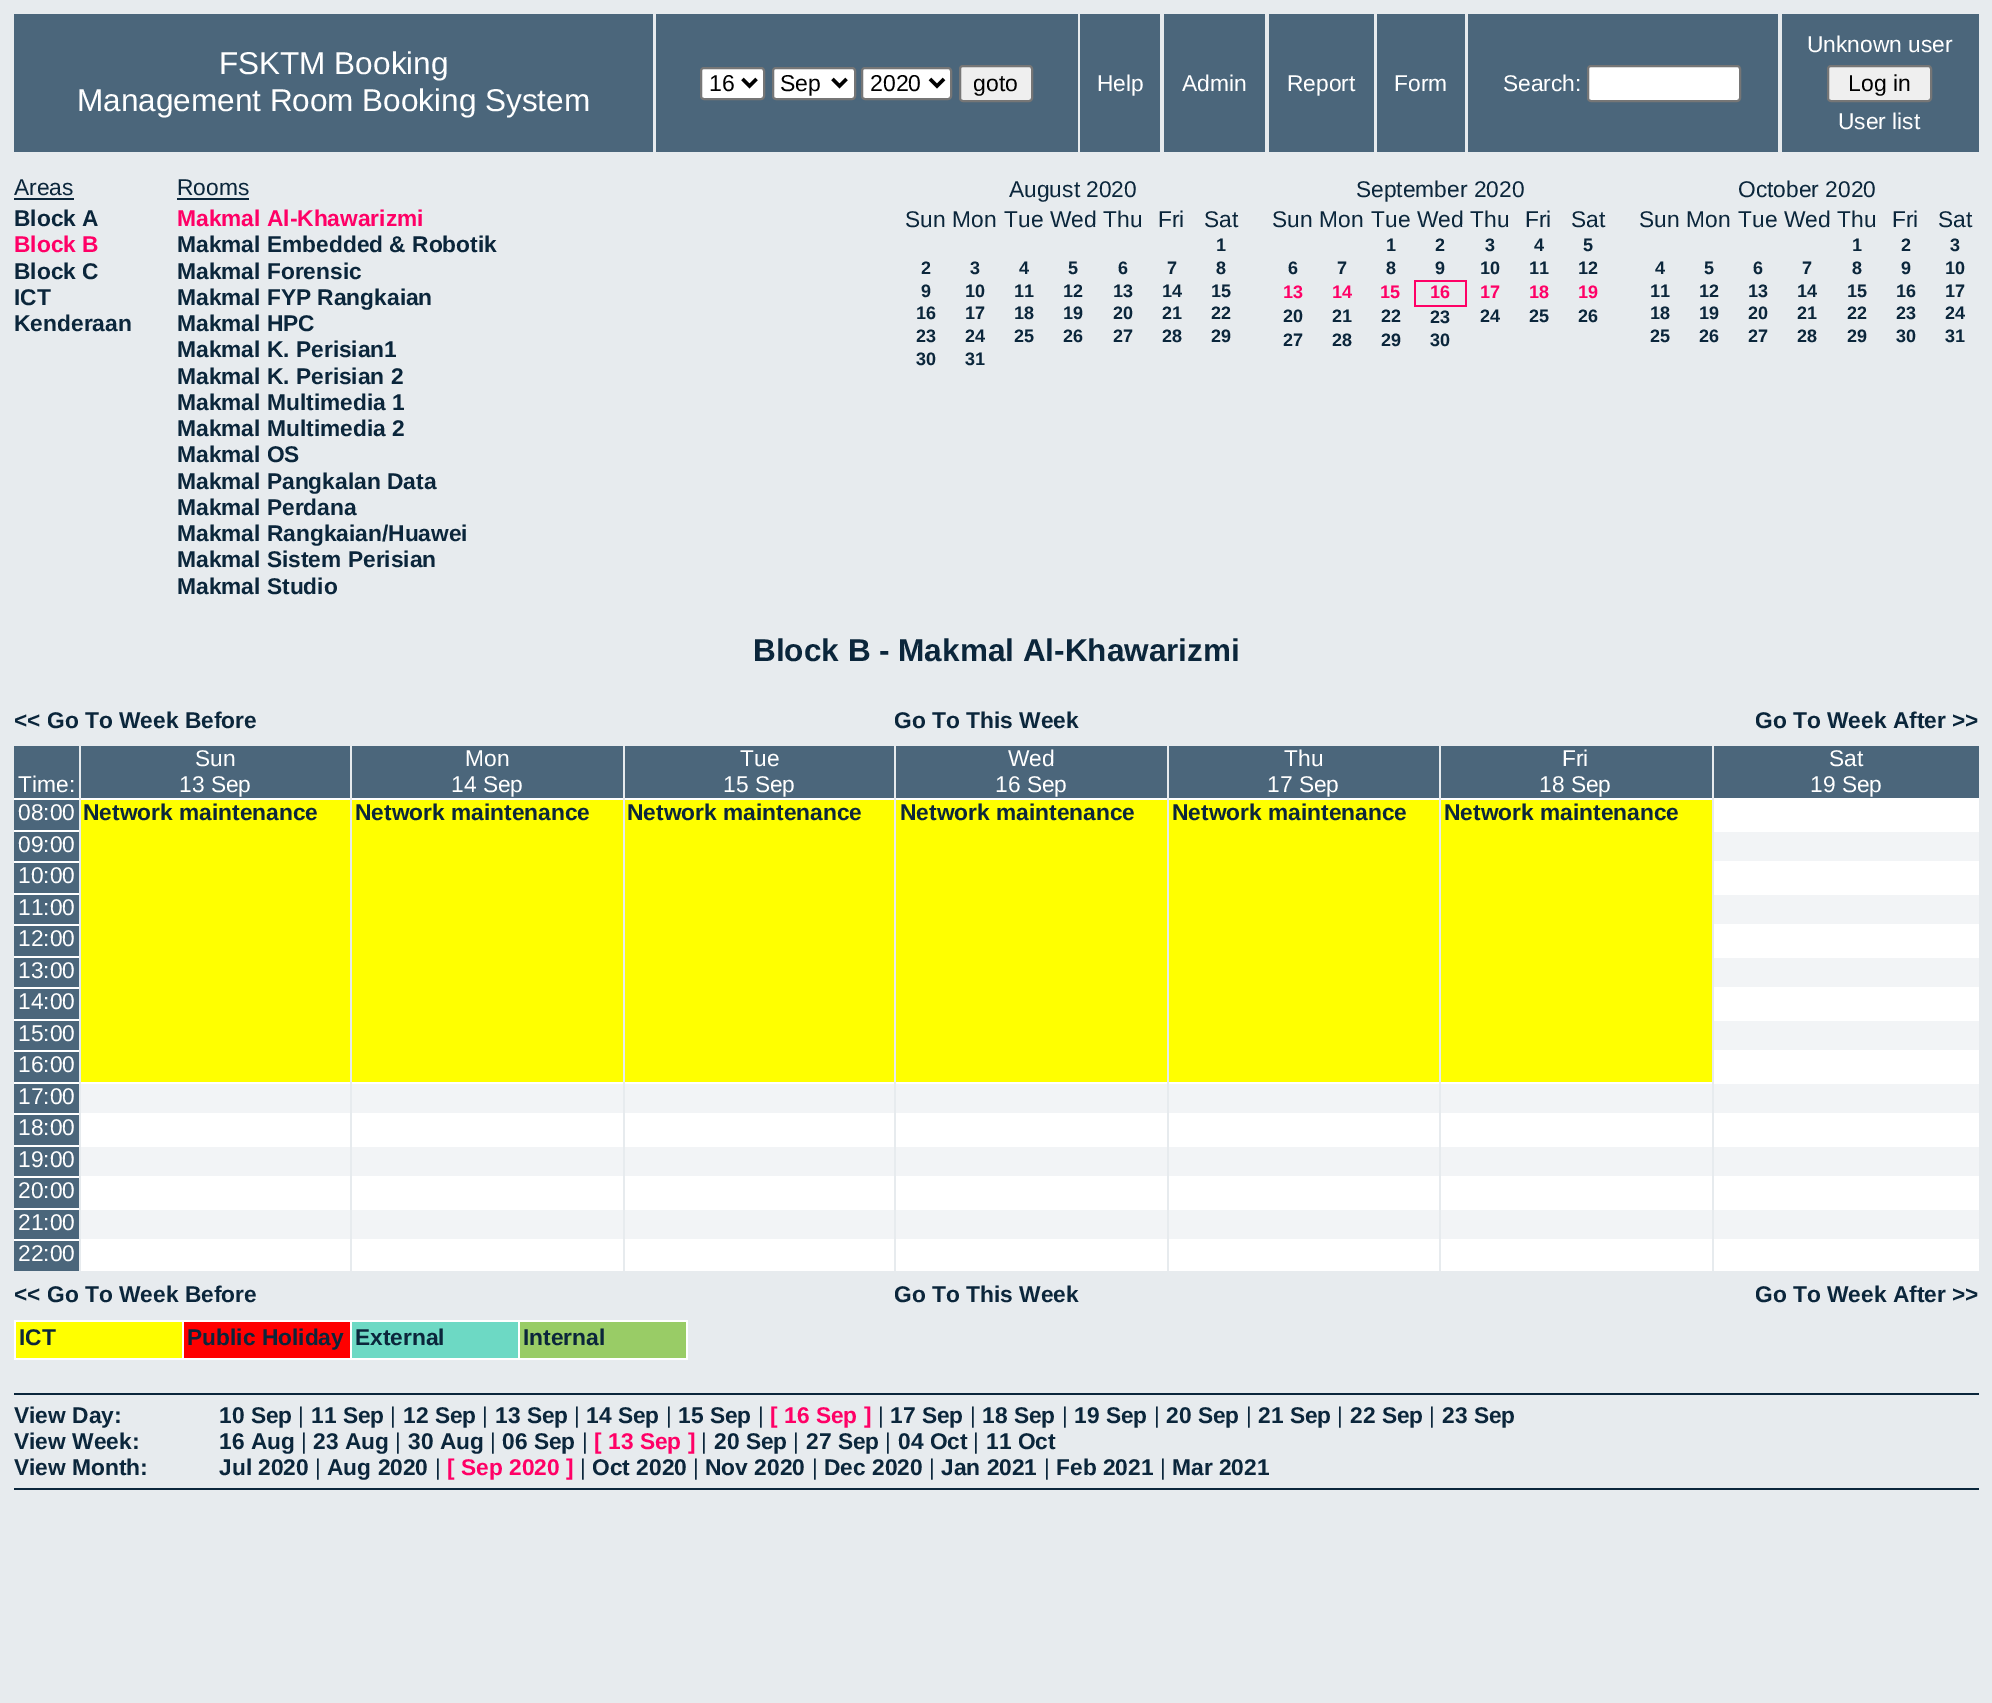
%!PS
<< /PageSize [1992 1703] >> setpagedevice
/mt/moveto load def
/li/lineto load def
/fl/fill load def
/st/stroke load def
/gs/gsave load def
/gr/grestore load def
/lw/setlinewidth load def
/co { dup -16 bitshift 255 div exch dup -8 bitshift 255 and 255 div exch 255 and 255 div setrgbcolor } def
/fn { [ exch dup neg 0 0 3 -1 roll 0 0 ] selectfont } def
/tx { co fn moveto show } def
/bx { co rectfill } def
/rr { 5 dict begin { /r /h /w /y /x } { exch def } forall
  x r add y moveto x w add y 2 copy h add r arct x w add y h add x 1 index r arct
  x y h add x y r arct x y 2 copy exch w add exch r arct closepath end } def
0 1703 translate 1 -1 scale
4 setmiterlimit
0 0 1992 1703 16#E7EBEE bx
14 14 639 138 16#4B667B bx
656 14 422 138 16#4B667B bx
16#FFFFFF co
701 68 63 31 3 rr gs fl gr
16#767676 co
2 lw
st
16#000000 co
3.5 lw
742.5 79 mt 749.5 86 li 756.5 79 li st
16#FFFFFF co
773 68 82 31 3 rr gs fl gr
16#767676 co
2 lw
st
16#000000 co
3.5 lw
832.5 79 mt 839.5 86 li 846.5 79 li st
16#FFFFFF co
862 68 89 31 3 rr gs fl gr
16#767676 co
2 lw
st
16#000000 co
3.5 lw
930 79 mt 937 86 li 944 79 li st
16#EFEFEF co
960 66 72 35 3 rr gs fl gr
16#767676 co
2 lw
st
1080 14 80 138 16#4B667B bx
1164 14 101 138 16#4B667B bx
1269 14 105 138 16#4B667B bx
1377 14 88 138 16#4B667B bx
1468 14 310 138 16#4B667B bx
16#FFFFFF co
1588 66 152 35 3 rr gs fl gr
16#767676 co
st
1782 14 197 138 16#4B667B bx
16#EFEFEF co
1828 66 103 35 3 rr gs fl gr
16#767676 co
st
14 198 60 2 16#0B263B bx
177 198 72 2 16#0B263B bx
1414 280 53 2 16#FF0066 bx
1465 280 2 26 16#FF0066 bx
1414 305 53 2 16#FF0066 bx
1414 280 2 26 16#FF0066 bx
14 746 65 52 16#4B667B bx
81 746 269 52 16#4B667B bx
352 746 271 52 16#4B667B bx
625 746 269 52 16#4B667B bx
896 746 271 52 16#4B667B bx
1169 746 270 52 16#4B667B bx
1441 746 271 52 16#4B667B bx
1714 746 265 52 16#4B667B bx
14 800 65 30 16#4B667B bx
14 798 1698 2 16#FFFFFF bx
81 800 269 282 16#FFFF00 bx
79 798 2 2 16#E7EBEE bx
352 800 271 282 16#FFFF00 bx
350 798 2 2 16#E7EBEE bx
625 800 269 282 16#FFFF00 bx
623 798 2 2 16#E7EBEE bx
896 800 271 282 16#FFFF00 bx
894 798 2 2 16#E7EBEE bx
1169 800 270 282 16#FFFF00 bx
1167 798 2 2 16#E7EBEE bx
1441 800 271 282 16#FFFF00 bx
1439 798 2 2 16#E7EBEE bx
1714 798 265 32 16#FFFFFF bx
14 832 65 29 16#4B667B bx
14 830 65 2 16#FFFFFF bx
1714 832 265 29 16#F2F4F6 bx
1712 830 267 2 16#FFFFFF bx
1712 830 2 2 16#E7EBEE bx
14 863 65 30 16#4B667B bx
14 861 65 2 16#FFFFFF bx
1714 861 265 32 16#FFFFFF bx
14 895 65 29 16#4B667B bx
14 893 65 2 16#FFFFFF bx
1714 895 265 29 16#F2F4F6 bx
1712 893 267 2 16#FFFFFF bx
1712 893 2 2 16#E7EBEE bx
14 926 65 30 16#4B667B bx
14 924 65 2 16#FFFFFF bx
1714 924 265 32 16#FFFFFF bx
14 958 65 29 16#4B667B bx
14 956 65 2 16#FFFFFF bx
1714 958 265 29 16#F2F4F6 bx
1712 956 267 2 16#FFFFFF bx
1712 956 2 2 16#E7EBEE bx
14 989 65 30 16#4B667B bx
14 987 65 2 16#FFFFFF bx
1714 987 265 32 16#FFFFFF bx
14 1021 65 29 16#4B667B bx
14 1019 65 2 16#FFFFFF bx
1714 1021 265 29 16#F2F4F6 bx
1712 1019 267 2 16#FFFFFF bx
1712 1019 2 2 16#E7EBEE bx
14 1052 65 30 16#4B667B bx
14 1050 65 2 16#FFFFFF bx
1714 1050 265 32 16#FFFFFF bx
14 1084 65 29 16#4B667B bx
14 1082 1965 2 16#FFFFFF bx
81 1084 269 29 16#F2F4F6 bx
79 1082 2 2 16#E7EBEE bx
352 1084 271 29 16#F2F4F6 bx
350 1082 2 2 16#E7EBEE bx
625 1084 269 29 16#F2F4F6 bx
623 1082 2 2 16#E7EBEE bx
896 1084 271 29 16#F2F4F6 bx
894 1082 2 2 16#E7EBEE bx
1169 1084 270 29 16#F2F4F6 bx
1167 1082 2 2 16#E7EBEE bx
1441 1084 271 29 16#F2F4F6 bx
1439 1082 2 2 16#E7EBEE bx
1714 1084 265 29 16#F2F4F6 bx
1712 1082 2 2 16#E7EBEE bx
14 1115 65 30 16#4B667B bx
14 1113 65 2 16#FFFFFF bx
81 1113 269 32 16#FFFFFF bx
352 1113 271 32 16#FFFFFF bx
625 1113 269 32 16#FFFFFF bx
896 1113 271 32 16#FFFFFF bx
1169 1113 270 32 16#FFFFFF bx
1441 1113 271 32 16#FFFFFF bx
1714 1113 265 32 16#FFFFFF bx
14 1147 65 29 16#4B667B bx
14 1145 1965 2 16#FFFFFF bx
81 1147 269 29 16#F2F4F6 bx
79 1145 2 2 16#E7EBEE bx
352 1147 271 29 16#F2F4F6 bx
350 1145 2 2 16#E7EBEE bx
625 1147 269 29 16#F2F4F6 bx
623 1145 2 2 16#E7EBEE bx
896 1147 271 29 16#F2F4F6 bx
894 1145 2 2 16#E7EBEE bx
1169 1147 270 29 16#F2F4F6 bx
1167 1145 2 2 16#E7EBEE bx
1441 1147 271 29 16#F2F4F6 bx
1439 1145 2 2 16#E7EBEE bx
1714 1147 265 29 16#F2F4F6 bx
1712 1145 2 2 16#E7EBEE bx
14 1178 65 30 16#4B667B bx
14 1176 65 2 16#FFFFFF bx
81 1176 269 32 16#FFFFFF bx
352 1176 271 32 16#FFFFFF bx
625 1176 269 32 16#FFFFFF bx
896 1176 271 32 16#FFFFFF bx
1169 1176 270 32 16#FFFFFF bx
1441 1176 271 32 16#FFFFFF bx
1714 1176 265 32 16#FFFFFF bx
14 1210 65 29 16#4B667B bx
14 1208 1965 2 16#FFFFFF bx
81 1210 269 29 16#F2F4F6 bx
79 1208 2 2 16#E7EBEE bx
352 1210 271 29 16#F2F4F6 bx
350 1208 2 2 16#E7EBEE bx
625 1210 269 29 16#F2F4F6 bx
623 1208 2 2 16#E7EBEE bx
896 1210 271 29 16#F2F4F6 bx
894 1208 2 2 16#E7EBEE bx
1169 1210 270 29 16#F2F4F6 bx
1167 1208 2 2 16#E7EBEE bx
1441 1210 271 29 16#F2F4F6 bx
1439 1208 2 2 16#E7EBEE bx
1714 1210 265 29 16#F2F4F6 bx
1712 1208 2 2 16#E7EBEE bx
14 1241 65 30 16#4B667B bx
14 1239 65 2 16#FFFFFF bx
81 1239 269 32 16#FFFFFF bx
352 1239 271 32 16#FFFFFF bx
625 1239 269 32 16#FFFFFF bx
896 1239 271 32 16#FFFFFF bx
1169 1239 270 32 16#FFFFFF bx
1441 1239 271 32 16#FFFFFF bx
1714 1239 265 32 16#FFFFFF bx
16 1322 166 36 16#FFFF00 bx
518 1320 170 2 16#FFFFFF bx
686 1320 2 40 16#FFFFFF bx
518 1358 170 2 16#FFFFFF bx
518 1320 2 40 16#FFFFFF bx
350 1320 170 2 16#FFFFFF bx
350 1358 170 2 16#FFFFFF bx
350 1320 2 40 16#FFFFFF bx
182 1320 170 2 16#FFFFFF bx
182 1358 170 2 16#FFFFFF bx
182 1320 2 40 16#FFFFFF bx
14 1320 170 2 16#FFFFFF bx
14 1358 170 2 16#FFFFFF bx
14 1320 2 40 16#FFFFFF bx
184 1322 166 36 16#FF0000 bx
352 1322 166 36 16#6DD9C4 bx
520 1322 166 36 16#99CC66 bx
14 1393 1965 2 16#0B263B bx
14 1488 1965 2 16#0B263B bx
(FSKTM Booking) 219 74 /LiberationSans-Regular 31.5 16#FFFFFF tx
(Management Room Booking System) 77 111 /LiberationSans-Regular 31.5 16#FFFFFF tx
(16) 709 91 /LiberationSans-Regular 23 16#000000 tx
(Sep) 780 91 /LiberationSans-Regular 23 16#000000 tx
(2020) 870 91 /LiberationSans-Regular 23 16#000000 tx
(goto) 973 91 /LiberationSans-Regular 23 16#000000 tx
(Help) 1097 91 /LiberationSans-Regular 22.75 16#FFFFFF tx
(Admin) 1182 91 /LiberationSans-Regular 22.75 16#FFFFFF tx
(Report) 1287 91 /LiberationSans-Regular 22.75 16#FFFFFF tx
(Form) 1394 91 /LiberationSans-Regular 22.75 16#FFFFFF tx
(Search:) 1503 91 /LiberationSans-Regular 22.75 16#FFFFFF tx
(Unknown user) 1807 52 /LiberationSans-Regular 22.75 16#FFFFFF tx
(Log in) 1848 91 /LiberationSans-Regular 23 16#000000 tx
(User list) 1838 129 /LiberationSans-Regular 22.75 16#FFFFFF tx
(Areas) 14 195 /LiberationSans-Regular 22.75 16#0B263B tx
(Block A) 14 226 /LiberationSans-Bold 22.75 16#0B263B tx
(Block B) 14 252 /LiberationSans-Bold 22.75 16#FF0066 tx
(Block C) 14 279 /LiberationSans-Bold 22.75 16#0B263B tx
(ICT) 14 305 /LiberationSans-Bold 22.75 16#0B263B tx
(Kenderaan) 14 331 /LiberationSans-Bold 22.75 16#0B263B tx
(Rooms) 177 195 /LiberationSans-Regular 22.75 16#0B263B tx
(Makmal Al-Khawarizmi) 177 226 /LiberationSans-Bold 22.75 16#FF0066 tx
(Makmal Embedded & Robotik) 177 252 /LiberationSans-Bold 22.75 16#0B263B tx
(Makmal Forensic) 177 279 /LiberationSans-Bold 22.75 16#0B263B tx
(Makmal FYP Rangkaian) 177 305 /LiberationSans-Bold 22.75 16#0B263B tx
(Makmal HPC) 177 331 /LiberationSans-Bold 22.75 16#0B263B tx
(Makmal K. Perisian1) 177 357 /LiberationSans-Bold 22.75 16#0B263B tx
(Makmal K. Perisian 2) 177 384 /LiberationSans-Bold 22.75 16#0B263B tx
(Makmal Multimedia 1) 177 410 /LiberationSans-Bold 22.75 16#0B263B tx
(Makmal Multimedia 2) 177 436 /LiberationSans-Bold 22.75 16#0B263B tx
(Makmal OS) 177 462 /LiberationSans-Bold 22.75 16#0B263B tx
(Makmal Pangkalan Data) 177 489 /LiberationSans-Bold 22.75 16#0B263B tx
(Makmal Perdana) 177 515 /LiberationSans-Bold 22.75 16#0B263B tx
(Makmal Rangkaian/Huawei) 177 541 /LiberationSans-Bold 22.75 16#0B263B tx
(Makmal Sistem Perisian) 177 567 /LiberationSans-Bold 22.75 16#0B263B tx
(Makmal Studio) 177 594 /LiberationSans-Bold 22.75 16#0B263B tx
(August 2020) 1009 197 /LiberationSans-Regular 22.75 16#0B263B tx
(Sun) 905 227 /LiberationSans-Regular 22.75 16#0B263B tx
(Mon) 952 227 /LiberationSans-Regular 22.75 16#0B263B tx
(Tue) 1004 227 /LiberationSans-Regular 22.75 16#0B263B tx
(Wed) 1050 227 /LiberationSans-Regular 22.75 16#0B263B tx
(Thu) 1103 227 /LiberationSans-Regular 22.75 16#0B263B tx
(Fri) 1158 227 /LiberationSans-Regular 22.75 16#0B263B tx
(Sat) 1204 227 /LiberationSans-Regular 22.75 16#0B263B tx
(1) 1216 251 /LiberationSans-Bold 18 16#0B263B tx
(2) 921 274 /LiberationSans-Bold 18 16#0B263B tx
(3) 970 274 /LiberationSans-Bold 18 16#0B263B tx
(4) 1019 274 /LiberationSans-Bold 18 16#0B263B tx
(5) 1068 274 /LiberationSans-Bold 18 16#0B263B tx
(6) 1118 274 /LiberationSans-Bold 18 16#0B263B tx
(7) 1167 274 /LiberationSans-Bold 18 16#0B263B tx
(8) 1216 274 /LiberationSans-Bold 18 16#0B263B tx
(9) 921 297 /LiberationSans-Bold 18 16#0B263B tx
(10) 965 297 /LiberationSans-Bold 18 16#0B263B tx
(11) 1014 297 /LiberationSans-Bold 18 16#0B263B tx
(12) 1063 297 /LiberationSans-Bold 18 16#0B263B tx
(13) 1113 297 /LiberationSans-Bold 18 16#0B263B tx
(14) 1162 297 /LiberationSans-Bold 18 16#0B263B tx
(15) 1211 297 /LiberationSans-Bold 18 16#0B263B tx
(16) 916 319 /LiberationSans-Bold 18 16#0B263B tx
(17) 965 319 /LiberationSans-Bold 18 16#0B263B tx
(18) 1014 319 /LiberationSans-Bold 18 16#0B263B tx
(19) 1063 319 /LiberationSans-Bold 18 16#0B263B tx
(20) 1113 319 /LiberationSans-Bold 18 16#0B263B tx
(21) 1162 319 /LiberationSans-Bold 18 16#0B263B tx
(22) 1211 319 /LiberationSans-Bold 18 16#0B263B tx
(23) 916 342 /LiberationSans-Bold 18 16#0B263B tx
(24) 965 342 /LiberationSans-Bold 18 16#0B263B tx
(25) 1014 342 /LiberationSans-Bold 18 16#0B263B tx
(26) 1063 342 /LiberationSans-Bold 18 16#0B263B tx
(27) 1113 342 /LiberationSans-Bold 18 16#0B263B tx
(28) 1162 342 /LiberationSans-Bold 18 16#0B263B tx
(29) 1211 342 /LiberationSans-Bold 18 16#0B263B tx
(30) 916 365 /LiberationSans-Bold 18 16#0B263B tx
(31) 965 365 /LiberationSans-Bold 18 16#0B263B tx
(September 2020) 1356 197 /LiberationSans-Regular 22.75 16#0B263B tx
(Sun) 1272 227 /LiberationSans-Regular 22.75 16#0B263B tx
(Mon) 1319 227 /LiberationSans-Regular 22.75 16#0B263B tx
(Tue) 1371 227 /LiberationSans-Regular 22.75 16#0B263B tx
(Wed) 1417 227 /LiberationSans-Regular 22.75 16#0B263B tx
(Thu) 1470 227 /LiberationSans-Regular 22.75 16#0B263B tx
(Fri) 1525 227 /LiberationSans-Regular 22.75 16#0B263B tx
(Sat) 1571 227 /LiberationSans-Regular 22.75 16#0B263B tx
(1) 1386 251 /LiberationSans-Bold 18 16#0B263B tx
(2) 1435 251 /LiberationSans-Bold 18 16#0B263B tx
(3) 1485 251 /LiberationSans-Bold 18 16#0B263B tx
(4) 1534 251 /LiberationSans-Bold 18 16#0B263B tx
(5) 1583 251 /LiberationSans-Bold 18 16#0B263B tx
(6) 1288 274 /LiberationSans-Bold 18 16#0B263B tx
(7) 1337 274 /LiberationSans-Bold 18 16#0B263B tx
(8) 1386 274 /LiberationSans-Bold 18 16#0B263B tx
(9) 1435 274 /LiberationSans-Bold 18 16#0B263B tx
(10) 1480 274 /LiberationSans-Bold 18 16#0B263B tx
(11) 1529 274 /LiberationSans-Bold 18 16#0B263B tx
(12) 1578 274 /LiberationSans-Bold 18 16#0B263B tx
(13) 1283 298 /LiberationSans-Bold 18 16#FF0066 tx
(14) 1332 298 /LiberationSans-Bold 18 16#FF0066 tx
(15) 1380 298 /LiberationSans-Bold 18 16#FF0066 tx
(16) 1430 298 /LiberationSans-Bold 18 16#FF0066 tx
(17) 1480 298 /LiberationSans-Bold 18 16#FF0066 tx
(18) 1529 298 /LiberationSans-Bold 18 16#FF0066 tx
(19) 1578 298 /LiberationSans-Bold 18 16#FF0066 tx
(20) 1283 322 /LiberationSans-Bold 18 16#0B263B tx
(21) 1332 322 /LiberationSans-Bold 18 16#0B263B tx
(22) 1381 322 /LiberationSans-Bold 18 16#0B263B tx
(23) 1430 323 /LiberationSans-Bold 18 16#0B263B tx
(24) 1480 322 /LiberationSans-Bold 18 16#0B263B tx
(25) 1529 322 /LiberationSans-Bold 18 16#0B263B tx
(26) 1578 322 /LiberationSans-Bold 18 16#0B263B tx
(27) 1283 346 /LiberationSans-Bold 18 16#0B263B tx
(28) 1332 346 /LiberationSans-Bold 18 16#0B263B tx
(29) 1381 346 /LiberationSans-Bold 18 16#0B263B tx
(30) 1430 346 /LiberationSans-Bold 18 16#0B263B tx
(October 2020) 1738 197 /LiberationSans-Regular 22.75 16#0B263B tx
(Sun) 1639 227 /LiberationSans-Regular 22.75 16#0B263B tx
(Mon) 1686 227 /LiberationSans-Regular 22.75 16#0B263B tx
(Tue) 1738 227 /LiberationSans-Regular 22.75 16#0B263B tx
(Wed) 1784 227 /LiberationSans-Regular 22.75 16#0B263B tx
(Thu) 1837 227 /LiberationSans-Regular 22.75 16#0B263B tx
(Fri) 1892 227 /LiberationSans-Regular 22.75 16#0B263B tx
(Sat) 1938 227 /LiberationSans-Regular 22.75 16#0B263B tx
(1) 1852 251 /LiberationSans-Bold 18 16#0B263B tx
(2) 1901 251 /LiberationSans-Bold 18 16#0B263B tx
(3) 1950 251 /LiberationSans-Bold 18 16#0B263B tx
(4) 1655 274 /LiberationSans-Bold 18 16#0B263B tx
(5) 1704 274 /LiberationSans-Bold 18 16#0B263B tx
(6) 1753 274 /LiberationSans-Bold 18 16#0B263B tx
(7) 1802 274 /LiberationSans-Bold 18 16#0B263B tx
(8) 1852 274 /LiberationSans-Bold 18 16#0B263B tx
(9) 1901 274 /LiberationSans-Bold 18 16#0B263B tx
(10) 1945 274 /LiberationSans-Bold 18 16#0B263B tx
(11) 1650 297 /LiberationSans-Bold 18 16#0B263B tx
(12) 1699 297 /LiberationSans-Bold 18 16#0B263B tx
(13) 1748 297 /LiberationSans-Bold 18 16#0B263B tx
(14) 1797 297 /LiberationSans-Bold 18 16#0B263B tx
(15) 1847 297 /LiberationSans-Bold 18 16#0B263B tx
(16) 1896 297 /LiberationSans-Bold 18 16#0B263B tx
(17) 1945 297 /LiberationSans-Bold 18 16#0B263B tx
(18) 1650 319 /LiberationSans-Bold 18 16#0B263B tx
(19) 1699 319 /LiberationSans-Bold 18 16#0B263B tx
(20) 1748 319 /LiberationSans-Bold 18 16#0B263B tx
(21) 1797 319 /LiberationSans-Bold 18 16#0B263B tx
(22) 1847 319 /LiberationSans-Bold 18 16#0B263B tx
(23) 1896 319 /LiberationSans-Bold 18 16#0B263B tx
(24) 1945 319 /LiberationSans-Bold 18 16#0B263B tx
(25) 1650 342 /LiberationSans-Bold 18 16#0B263B tx
(26) 1699 342 /LiberationSans-Bold 18 16#0B263B tx
(27) 1748 342 /LiberationSans-Bold 18 16#0B263B tx
(28) 1797 342 /LiberationSans-Bold 18 16#0B263B tx
(29) 1847 342 /LiberationSans-Bold 18 16#0B263B tx
(30) 1896 342 /LiberationSans-Bold 18 16#0B263B tx
(31) 1945 342 /LiberationSans-Bold 18 16#0B263B tx
(Block B - Makmal Al-Khawarizmi) 753 661 /LiberationSans-Bold 31.5 16#0B263B tx
(<< Go To Week Before) 14 728 /LiberationSans-Bold 22.75 16#0B263B tx
(Go To This Week) 894 728 /LiberationSans-Bold 22.75 16#0B263B tx
(Go To Week After >>) 1755 728 /LiberationSans-Bold 22.75 16#0B263B tx
(Time:) 18 792 /LiberationSans-Regular 22.75 16#FFFFFF tx
(Sun) 195 766 /LiberationSans-Regular 22.75 16#FFFFFF tx
(13 Sep) 179 792 /LiberationSans-Regular 22.75 16#FFFFFF tx
(Mon) 465 766 /LiberationSans-Regular 22.75 16#FFFFFF tx
(14 Sep) 451 792 /LiberationSans-Regular 22.75 16#FFFFFF tx
(Tue) 740 766 /LiberationSans-Regular 22.75 16#FFFFFF tx
(15 Sep) 723 792 /LiberationSans-Regular 22.75 16#FFFFFF tx
(Wed) 1008 766 /LiberationSans-Regular 22.75 16#FFFFFF tx
(16 Sep) 995 792 /LiberationSans-Regular 22.75 16#FFFFFF tx
(Thu) 1284 766 /LiberationSans-Regular 22.75 16#FFFFFF tx
(17 Sep) 1267 792 /LiberationSans-Regular 22.75 16#FFFFFF tx
(Fri) 1562 766 /LiberationSans-Regular 22.75 16#FFFFFF tx
(18 Sep) 1539 792 /LiberationSans-Regular 22.75 16#FFFFFF tx
(Sat) 1829 766 /LiberationSans-Regular 22.75 16#FFFFFF tx
(19 Sep) 1810 792 /LiberationSans-Regular 22.75 16#FFFFFF tx
(08:00) 18 820 /LiberationSans-Regular 22.75 16#FFFFFF tx
(Network maintenance) 83 820 /LiberationSans-Bold 22.75 16#0B263B tx
(Network maintenance) 355 820 /LiberationSans-Bold 22.75 16#0B263B tx
(Network maintenance) 627 820 /LiberationSans-Bold 22.75 16#0B263B tx
(Network maintenance) 900 820 /LiberationSans-Bold 22.75 16#0B263B tx
(Network maintenance) 1172 820 /LiberationSans-Bold 22.75 16#0B263B tx
(Network maintenance) 1444 820 /LiberationSans-Bold 22.75 16#0B263B tx
(09:00) 18 852 /LiberationSans-Regular 22.75 16#FFFFFF tx
(10:00) 18 883 /LiberationSans-Regular 22.75 16#FFFFFF tx
(11:00) 18 915 /LiberationSans-Regular 22.75 16#FFFFFF tx
(12:00) 18 946 /LiberationSans-Regular 22.75 16#FFFFFF tx
(13:00) 18 978 /LiberationSans-Regular 22.75 16#FFFFFF tx
(14:00) 18 1009 /LiberationSans-Regular 22.75 16#FFFFFF tx
(15:00) 18 1041 /LiberationSans-Regular 22.75 16#FFFFFF tx
(16:00) 18 1072 /LiberationSans-Regular 22.75 16#FFFFFF tx
(17:00) 18 1104 /LiberationSans-Regular 22.75 16#FFFFFF tx
(18:00) 18 1135 /LiberationSans-Regular 22.75 16#FFFFFF tx
(19:00) 18 1167 /LiberationSans-Regular 22.75 16#FFFFFF tx
(20:00) 18 1198 /LiberationSans-Regular 22.75 16#FFFFFF tx
(21:00) 18 1230 /LiberationSans-Regular 22.75 16#FFFFFF tx
(22:00) 18 1261 /LiberationSans-Regular 22.75 16#FFFFFF tx
(<< Go To Week Before) 14 1302 /LiberationSans-Bold 22.75 16#0B263B tx
(Go To This Week) 894 1302 /LiberationSans-Bold 22.75 16#0B263B tx
(Go To Week After >>) 1755 1302 /LiberationSans-Bold 22.75 16#0B263B tx
(ICT) 19 1345 /LiberationSans-Bold 22.75 16#0B263B tx
(Public Holiday) 187 1345 /LiberationSans-Bold 22.75 16#0B263B tx
(External) 355 1345 /LiberationSans-Bold 22.75 16#0B263B tx
(Internal) 523 1345 /LiberationSans-Bold 22.75 16#0B263B tx
(View Day:) 14 1423 /LiberationSans-Bold 22.75 16#0B263B tx
(10 Sep) 219 1423 /LiberationSans-Bold 22.75 16#0B263B tx
(|) 298 1423 /LiberationSans-Regular 22.75 16#0B263B tx
(11 Sep) 311 1423 /LiberationSans-Bold 22.75 16#0B263B tx
(|) 390 1423 /LiberationSans-Regular 22.75 16#0B263B tx
(12 Sep) 403 1423 /LiberationSans-Bold 22.75 16#0B263B tx
(|) 482 1423 /LiberationSans-Regular 22.75 16#0B263B tx
(13 Sep) 495 1423 /LiberationSans-Bold 22.75 16#0B263B tx
(|) 574 1423 /LiberationSans-Regular 22.75 16#0B263B tx
(14 Sep) 586 1423 /LiberationSans-Bold 22.75 16#0B263B tx
(|) 666 1423 /LiberationSans-Regular 22.75 16#0B263B tx
(15 Sep) 678 1423 /LiberationSans-Bold 22.75 16#0B263B tx
(|) 758 1423 /LiberationSans-Regular 22.75 16#0B263B tx
([ 16 Sep ]) 770 1423 /LiberationSans-Bold 22.75 16#FF0066 tx
(|) 878 1423 /LiberationSans-Regular 22.75 16#0B263B tx
(17 Sep) 890 1423 /LiberationSans-Bold 22.75 16#0B263B tx
(|) 970 1423 /LiberationSans-Regular 22.75 16#0B263B tx
(18 Sep) 982 1423 /LiberationSans-Bold 22.75 16#0B263B tx
(|) 1062 1423 /LiberationSans-Regular 22.75 16#0B263B tx
(19 Sep) 1074 1423 /LiberationSans-Bold 22.75 16#0B263B tx
(|) 1154 1423 /LiberationSans-Regular 22.75 16#0B263B tx
(20 Sep) 1166 1423 /LiberationSans-Bold 22.75 16#0B263B tx
(|) 1246 1423 /LiberationSans-Regular 22.75 16#0B263B tx
(21 Sep) 1258 1423 /LiberationSans-Bold 22.75 16#0B263B tx
(|) 1337 1423 /LiberationSans-Regular 22.75 16#0B263B tx
(22 Sep) 1350 1423 /LiberationSans-Bold 22.75 16#0B263B tx
(|) 1429 1423 /LiberationSans-Regular 22.75 16#0B263B tx
(23 Sep) 1442 1423 /LiberationSans-Bold 22.75 16#0B263B tx
(View Week:) 14 1449 /LiberationSans-Bold 22.75 16#0B263B tx
(16 Aug) 219 1449 /LiberationSans-Bold 22.75 16#0B263B tx
(|) 301 1449 /LiberationSans-Regular 22.75 16#0B263B tx
(23 Aug) 313 1449 /LiberationSans-Bold 22.75 16#0B263B tx
(|) 395 1449 /LiberationSans-Regular 22.75 16#0B263B tx
(30 Aug) 408 1449 /LiberationSans-Bold 22.75 16#0B263B tx
(|) 490 1449 /LiberationSans-Regular 22.75 16#0B263B tx
(06 Sep) 502 1449 /LiberationSans-Bold 22.75 16#0B263B tx
(|) 582 1449 /LiberationSans-Regular 22.75 16#0B263B tx
([ 13 Sep ]) 594 1449 /LiberationSans-Bold 22.75 16#FF0066 tx
(|) 701 1449 /LiberationSans-Regular 22.75 16#0B263B tx
(20 Sep) 714 1449 /LiberationSans-Bold 22.75 16#0B263B tx
(|) 793 1449 /LiberationSans-Regular 22.75 16#0B263B tx
(27 Sep) 806 1449 /LiberationSans-Bold 22.75 16#0B263B tx
(|) 885 1449 /LiberationSans-Regular 22.75 16#0B263B tx
(04 Oct) 898 1449 /LiberationSans-Bold 22.75 16#0B263B tx
(|) 973 1449 /LiberationSans-Regular 22.75 16#0B263B tx
(11 Oct) 986 1449 /LiberationSans-Bold 22.75 16#0B263B tx
(View Month:) 14 1475 /LiberationSans-Bold 22.75 16#0B263B tx
(Jul 2020) 219 1475 /LiberationSans-Bold 22.75 16#0B263B tx
(|) 315 1475 /LiberationSans-Regular 22.75 16#0B263B tx
(Aug 2020) 327 1475 /LiberationSans-Bold 22.75 16#0B263B tx
(|) 435 1475 /LiberationSans-Regular 22.75 16#0B263B tx
([ Sep 2020 ]) 447 1475 /LiberationSans-Bold 22.75 16#FF0066 tx
(|) 580 1475 /LiberationSans-Regular 22.75 16#0B263B tx
(Oct 2020) 592 1475 /LiberationSans-Bold 22.75 16#0B263B tx
(|) 693 1475 /LiberationSans-Regular 22.75 16#0B263B tx
(Nov 2020) 705 1475 /LiberationSans-Bold 22.75 16#0B263B tx
(|) 812 1475 /LiberationSans-Regular 22.75 16#0B263B tx
(Dec 2020) 824 1475 /LiberationSans-Bold 22.75 16#0B263B tx
(|) 929 1475 /LiberationSans-Regular 22.75 16#0B263B tx
(Jan 2021) 941 1475 /LiberationSans-Bold 22.75 16#0B263B tx
(|) 1044 1475 /LiberationSans-Regular 22.75 16#0B263B tx
(Feb 2021) 1056 1475 /LiberationSans-Bold 22.75 16#0B263B tx
(|) 1160 1475 /LiberationSans-Regular 22.75 16#0B263B tx
(Mar 2021) 1172 1475 /LiberationSans-Bold 22.75 16#0B263B tx
showpage
